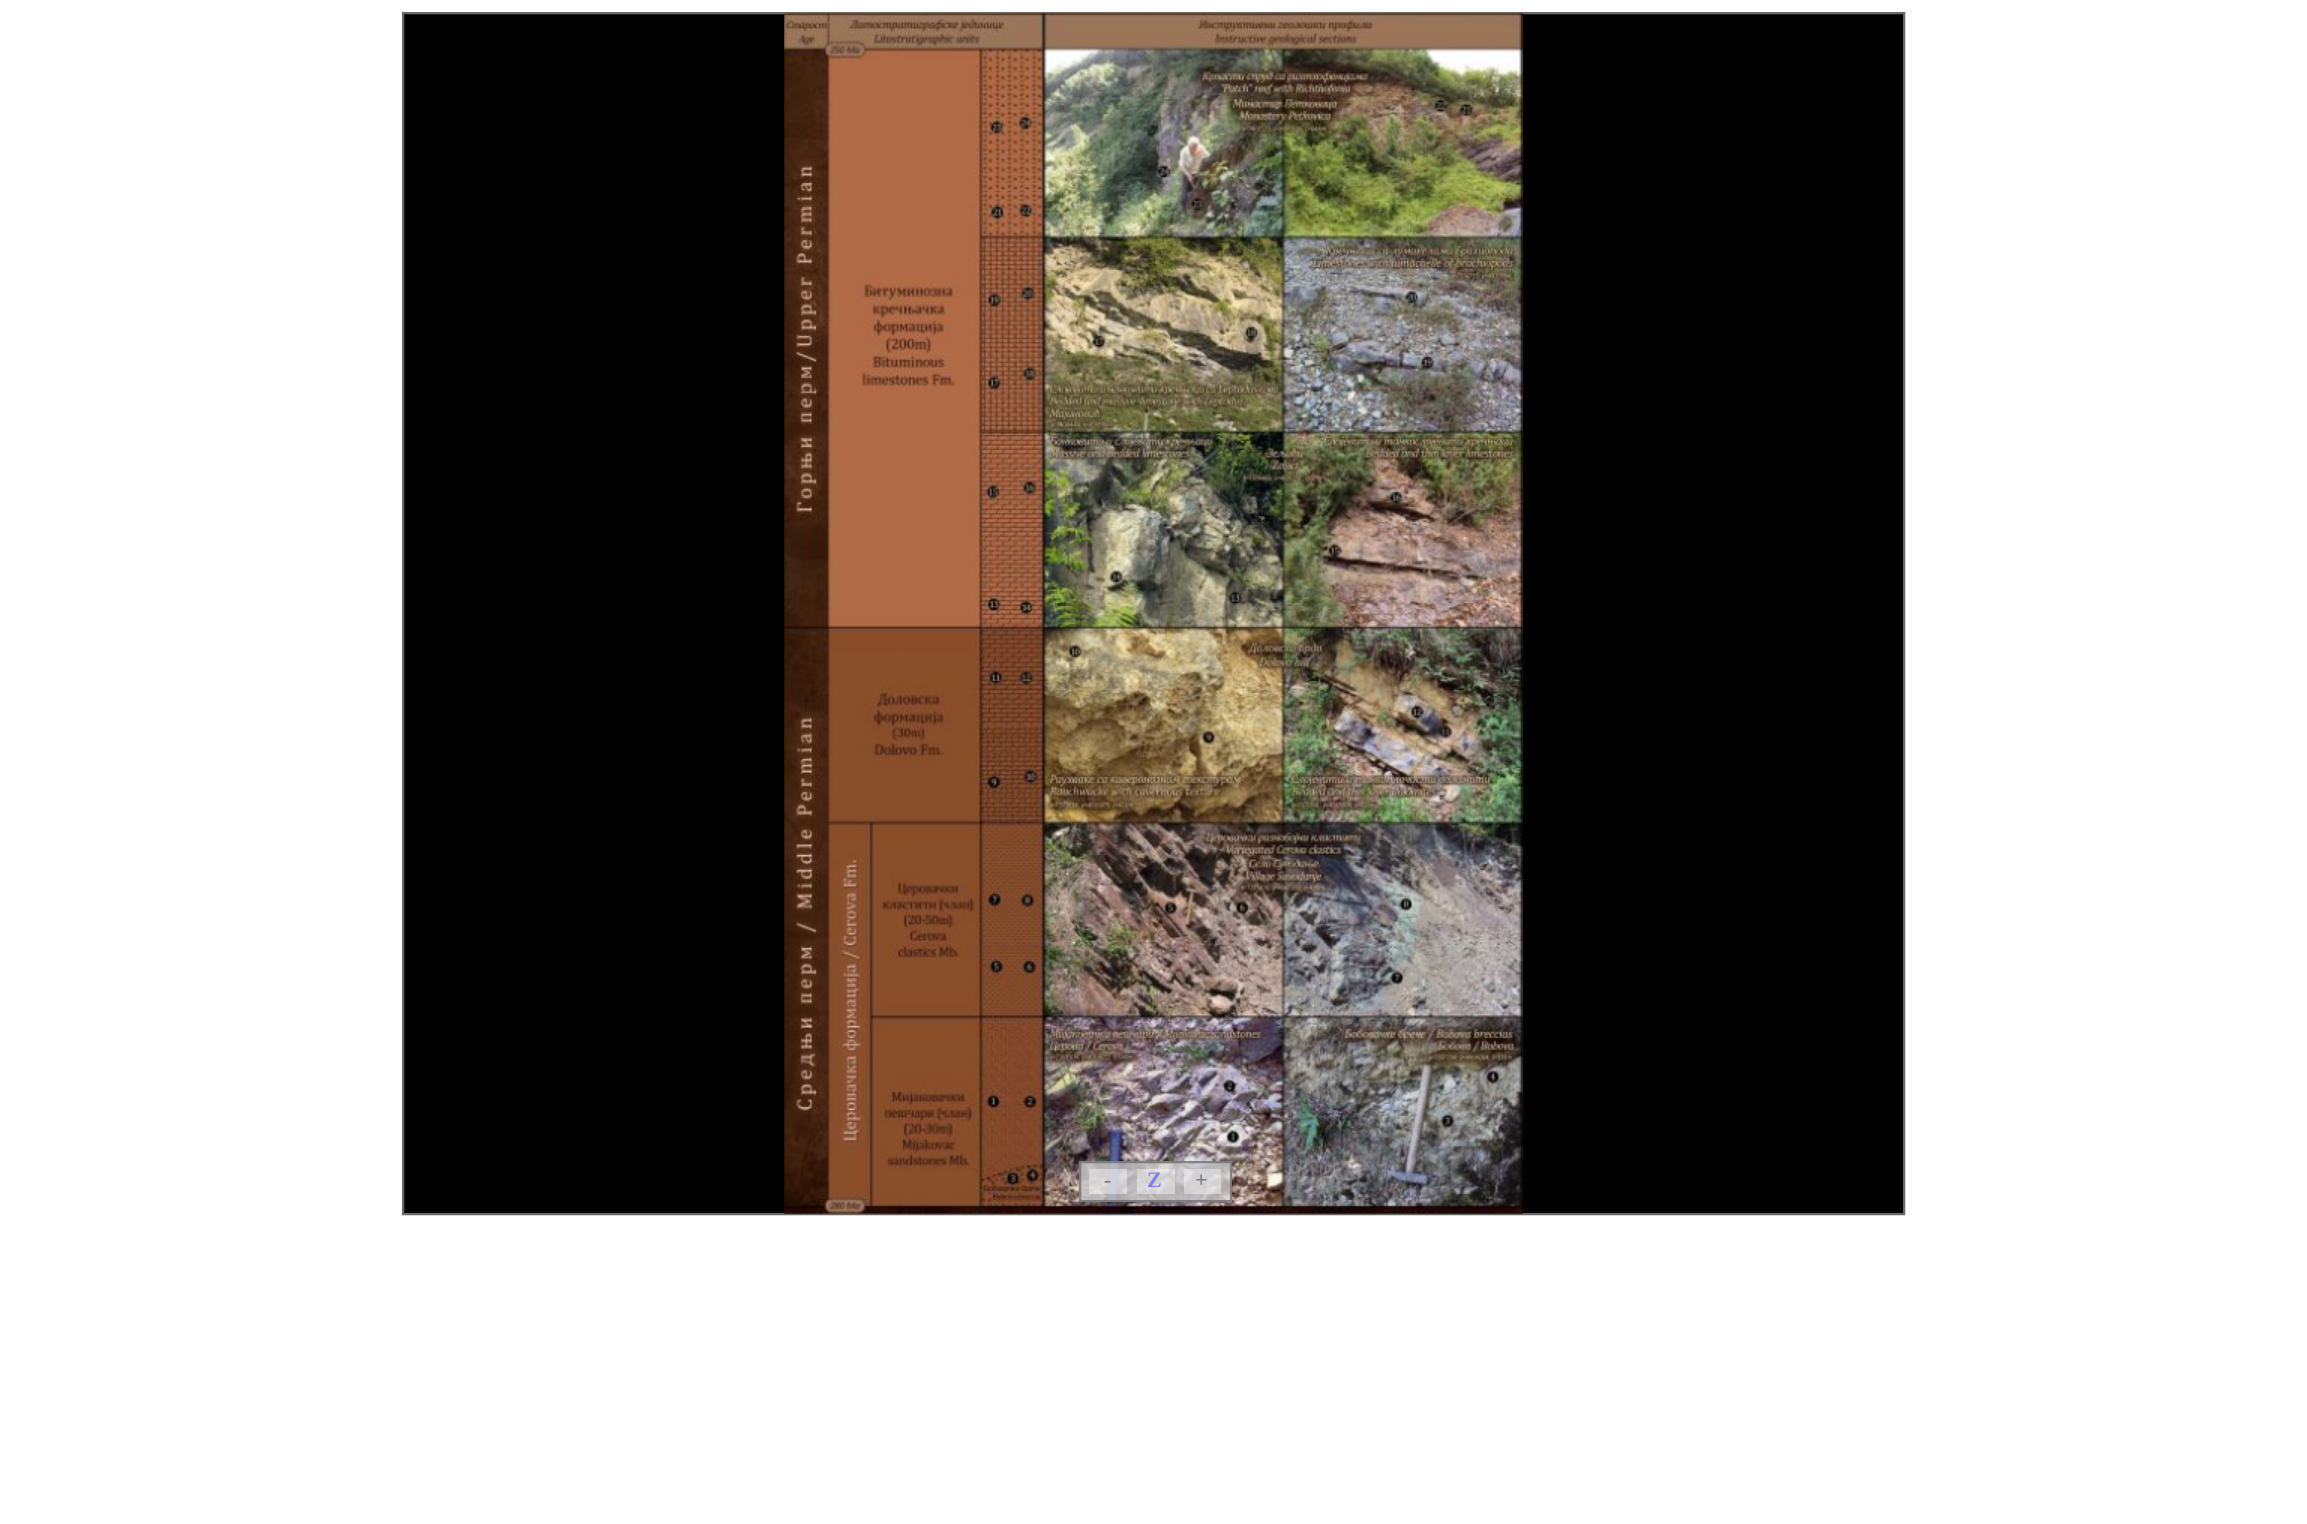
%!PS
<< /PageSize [2307 1524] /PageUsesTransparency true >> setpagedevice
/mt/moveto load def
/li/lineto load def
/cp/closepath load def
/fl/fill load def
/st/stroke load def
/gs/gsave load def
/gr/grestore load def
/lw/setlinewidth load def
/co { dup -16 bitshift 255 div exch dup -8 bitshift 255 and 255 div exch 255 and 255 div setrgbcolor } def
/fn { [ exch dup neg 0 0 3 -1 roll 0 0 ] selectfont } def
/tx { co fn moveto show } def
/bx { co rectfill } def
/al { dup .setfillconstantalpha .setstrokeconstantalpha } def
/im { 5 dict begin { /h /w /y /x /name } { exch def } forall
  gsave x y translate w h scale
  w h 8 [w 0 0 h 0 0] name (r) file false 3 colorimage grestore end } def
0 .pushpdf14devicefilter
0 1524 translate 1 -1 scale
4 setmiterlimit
0 0 2307 1524 16#FFFFFF bx
16#000000 co
403 13 mt 1904 13 li 1904 1214 li 403 1214 li cp gs fl gr
16#696969 co
2 lw
st
(media/1.raw) 784 13 739 1201 im
(media/2.raw) 784 13 739 1201 im
0.75 al
1079 1161 153 41 16#D3D3D3 bx
16#696969 co
1080 1162 151 39 rectstroke
0.4 al
1089 1169 38 25 16#FFFFFF bx
1137 1169 38 25 16#FFFFFF bx
1184 1169 37 25 16#FFFFFF bx
1 al
(-) 1104 1187 /LiberationSerif-Bold 22 16#7E7E82 tx
(Z) 1147 1187 /LiberationSerif-Bold 22 16#8281E7 tx
(+) 1195 1187 /LiberationSerif-Bold 22 16#7E7E82 tx
.poppdf14devicefilter showpage
